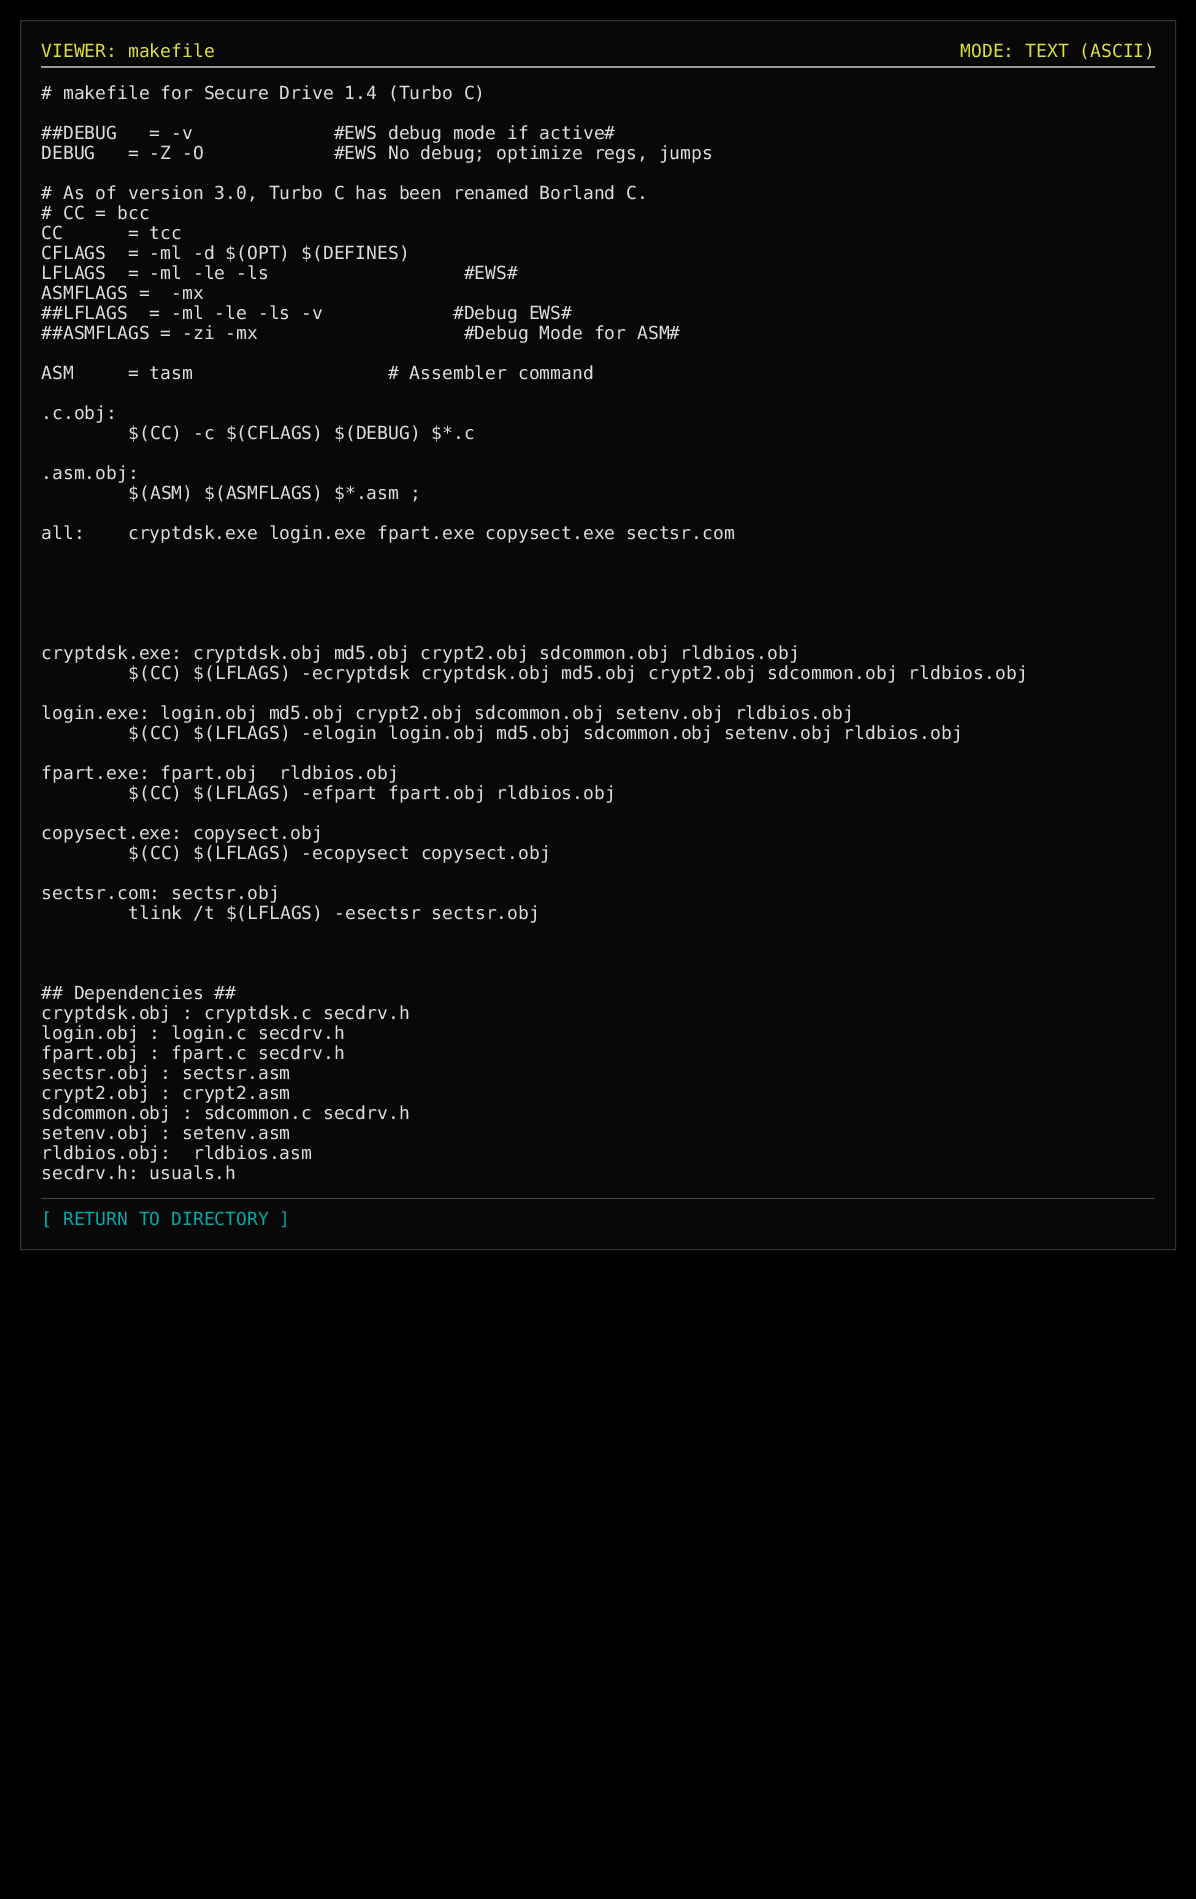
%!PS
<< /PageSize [1196 1899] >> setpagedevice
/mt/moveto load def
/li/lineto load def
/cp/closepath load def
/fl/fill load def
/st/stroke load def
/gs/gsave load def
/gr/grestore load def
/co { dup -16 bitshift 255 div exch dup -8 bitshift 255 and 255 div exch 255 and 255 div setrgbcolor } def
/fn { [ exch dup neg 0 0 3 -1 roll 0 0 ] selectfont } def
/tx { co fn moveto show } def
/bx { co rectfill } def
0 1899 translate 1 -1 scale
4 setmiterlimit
0 0 1196 1899 16#000000 bx
16#080808 co
20.5 20.5 mt 1175.5 20.5 li 1175.5 1249.5 li 20.5 1249.5 li cp gs fl gr
16#333333 co
st
41 66 1114 2 16#999999 bx
41 1198 1114 1 16#444444 bx
(VIEWER: makefile) 41 57 /DejaVuSansMono-Regular 18 16#DDDD44 tx
(MODE: TEXT \(ASCII\)) 960 57 /DejaVuSansMono-Regular 18 16#DDDD44 tx
(# makefile for Secure Drive 1.4 \(Turbo C\)) 41 99 /DejaVuSansMono-Regular 18 16#DDDDDD tx
(##DEBUG   = -v             #EWS debug mode if active#) 41 139 /DejaVuSansMono-Regular 18 16#DDDDDD tx
(DEBUG   = -Z -O            #EWS No debug; optimize regs, jumps) 41 159 /DejaVuSansMono-Regular 18 16#DDDDDD tx
(# As of version 3.0, Turbo C has been renamed Borland C.) 41 199 /DejaVuSansMono-Regular 18 16#DDDDDD tx
(# CC = bcc) 41 219 /DejaVuSansMono-Regular 18 16#DDDDDD tx
(CC      = tcc) 41 239 /DejaVuSansMono-Regular 18 16#DDDDDD tx
(CFLAGS  = -ml -d $\(OPT\) $\(DEFINES\)) 41 259 /DejaVuSansMono-Regular 18 16#DDDDDD tx
(LFLAGS  = -ml -le -ls                  #EWS#) 41 279 /DejaVuSansMono-Regular 18 16#DDDDDD tx
(ASMFLAGS =  -mx) 41 299 /DejaVuSansMono-Regular 18 16#DDDDDD tx
(##LFLAGS  = -ml -le -ls -v            #Debug EWS#) 41 319 /DejaVuSansMono-Regular 18 16#DDDDDD tx
(##ASMFLAGS = -zi -mx                   #Debug Mode for ASM#) 41 339 /DejaVuSansMono-Regular 18 16#DDDDDD tx
(ASM     = tasm                  # Assembler command) 41 379 /DejaVuSansMono-Regular 18 16#DDDDDD tx
(.c.obj:) 41 419 /DejaVuSansMono-Regular 18 16#DDDDDD tx
($\(CC\) -c $\(CFLAGS\) $\(DEBUG\) $*.c) 128 439 /DejaVuSansMono-Regular 18 16#DDDDDD tx
(.asm.obj:) 41 479 /DejaVuSansMono-Regular 18 16#DDDDDD tx
($\(ASM\) $\(ASMFLAGS\) $*.asm ;) 128 499 /DejaVuSansMono-Regular 18 16#DDDDDD tx
(all:    cryptdsk.exe login.exe fpart.exe copysect.exe sectsr.com) 41 539 /DejaVuSansMono-Regular 18 16#DDDDDD tx
(cryptdsk.exe: cryptdsk.obj md5.obj crypt2.obj sdcommon.obj rldbios.obj) 41 659 /DejaVuSansMono-Regular 18 16#DDDDDD tx
($\(CC\) $\(LFLAGS\) -ecryptdsk cryptdsk.obj md5.obj crypt2.obj sdcommon.obj rldbios.obj) 128 679 /DejaVuSansMono-Regular 18 16#DDDDDD tx
(login.exe: login.obj md5.obj crypt2.obj sdcommon.obj setenv.obj rldbios.obj) 41 719 /DejaVuSansMono-Regular 18 16#DDDDDD tx
($\(CC\) $\(LFLAGS\) -elogin login.obj md5.obj sdcommon.obj setenv.obj rldbios.obj) 128 739 /DejaVuSansMono-Regular 18 16#DDDDDD tx
(fpart.exe: fpart.obj  rldbios.obj) 41 779 /DejaVuSansMono-Regular 18 16#DDDDDD tx
($\(CC\) $\(LFLAGS\) -efpart fpart.obj rldbios.obj) 128 799 /DejaVuSansMono-Regular 18 16#DDDDDD tx
(copysect.exe: copysect.obj) 41 839 /DejaVuSansMono-Regular 18 16#DDDDDD tx
($\(CC\) $\(LFLAGS\) -ecopysect copysect.obj) 128 859 /DejaVuSansMono-Regular 18 16#DDDDDD tx
(sectsr.com: sectsr.obj) 41 899 /DejaVuSansMono-Regular 18 16#DDDDDD tx
(tlink /t $\(LFLAGS\) -esectsr sectsr.obj) 128 919 /DejaVuSansMono-Regular 18 16#DDDDDD tx
(## Dependencies ##) 41 999 /DejaVuSansMono-Regular 18 16#DDDDDD tx
(cryptdsk.obj : cryptdsk.c secdrv.h) 41 1019 /DejaVuSansMono-Regular 18 16#DDDDDD tx
(login.obj : login.c secdrv.h) 41 1039 /DejaVuSansMono-Regular 18 16#DDDDDD tx
(fpart.obj : fpart.c secdrv.h) 41 1059 /DejaVuSansMono-Regular 18 16#DDDDDD tx
(sectsr.obj : sectsr.asm) 41 1079 /DejaVuSansMono-Regular 18 16#DDDDDD tx
(crypt2.obj : crypt2.asm) 41 1099 /DejaVuSansMono-Regular 18 16#DDDDDD tx
(sdcommon.obj : sdcommon.c secdrv.h) 41 1119 /DejaVuSansMono-Regular 18 16#DDDDDD tx
(setenv.obj : setenv.asm) 41 1139 /DejaVuSansMono-Regular 18 16#DDDDDD tx
(rldbios.obj:  rldbios.asm) 41 1159 /DejaVuSansMono-Regular 18 16#DDDDDD tx
(secdrv.h: usuals.h) 41 1179 /DejaVuSansMono-Regular 18 16#DDDDDD tx
([ RETURN TO DIRECTORY ]) 41 1225 /DejaVuSansMono-Regular 18 16#00AAAA tx
showpage
